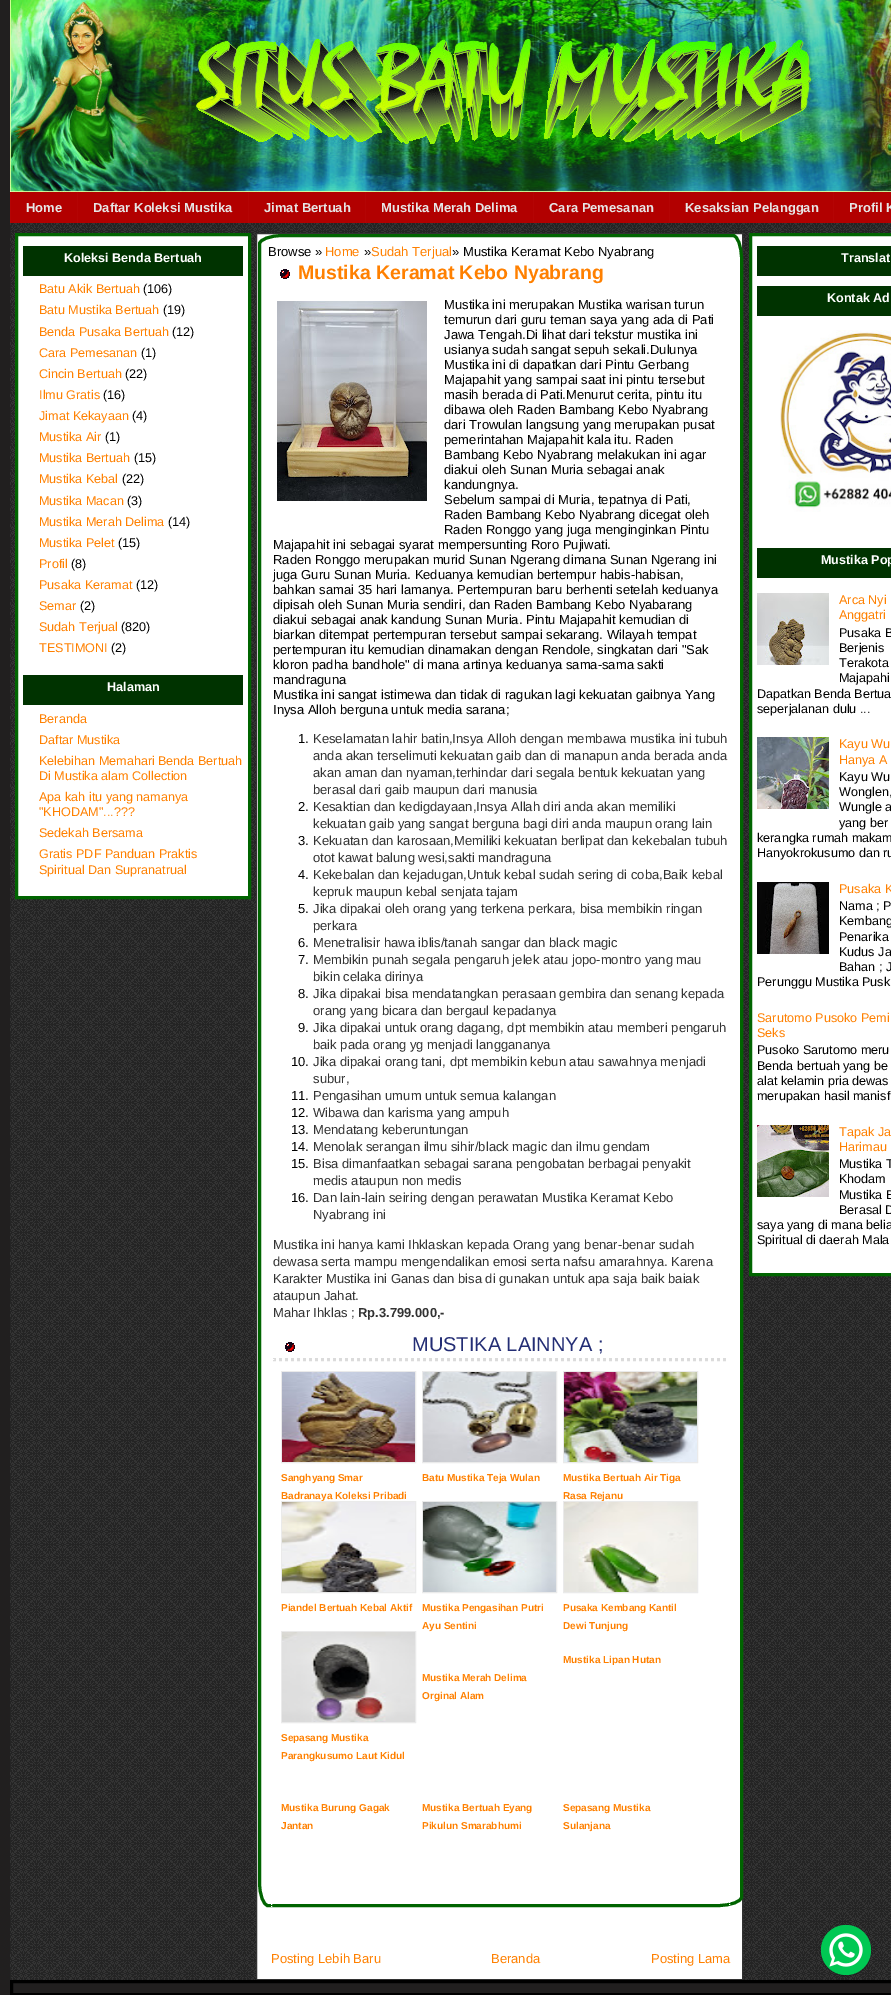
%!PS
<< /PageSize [891 1995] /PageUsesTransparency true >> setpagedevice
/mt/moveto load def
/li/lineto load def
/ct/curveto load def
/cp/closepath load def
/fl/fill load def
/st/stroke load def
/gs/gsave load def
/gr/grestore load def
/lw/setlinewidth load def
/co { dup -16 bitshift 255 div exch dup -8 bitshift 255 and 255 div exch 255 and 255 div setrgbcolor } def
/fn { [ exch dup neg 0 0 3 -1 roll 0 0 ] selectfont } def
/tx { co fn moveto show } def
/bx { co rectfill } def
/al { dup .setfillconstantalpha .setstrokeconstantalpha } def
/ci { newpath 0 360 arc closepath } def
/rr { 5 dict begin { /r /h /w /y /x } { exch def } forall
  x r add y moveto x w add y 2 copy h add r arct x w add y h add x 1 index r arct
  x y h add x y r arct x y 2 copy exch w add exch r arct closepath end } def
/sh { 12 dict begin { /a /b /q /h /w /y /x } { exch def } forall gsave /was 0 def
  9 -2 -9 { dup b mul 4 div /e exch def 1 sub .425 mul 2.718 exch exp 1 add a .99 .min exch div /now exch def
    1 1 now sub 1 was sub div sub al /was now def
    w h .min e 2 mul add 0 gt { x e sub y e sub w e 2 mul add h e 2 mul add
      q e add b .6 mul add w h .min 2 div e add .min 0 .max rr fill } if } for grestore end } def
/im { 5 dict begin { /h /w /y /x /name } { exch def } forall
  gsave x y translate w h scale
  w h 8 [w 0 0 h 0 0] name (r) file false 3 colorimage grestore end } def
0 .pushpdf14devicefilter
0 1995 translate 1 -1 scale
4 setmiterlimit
0 0 891 1995 16#211F1F bx
(media/1.raw) 10 0 881 192 im
11 192 880 31 16#B20000 bx
10 192 1 31 16#B40404 bx
77 192 1 31 16#B40404 bx
248 192 1 31 16#B40404 bx
365 192 1 31 16#B40404 bx
533 192 1 31 16#B40404 bx
669 192 1 31 16#B40404 bx
833 192 1 31 16#B40404 bx
(media/2.raw) 10 223 881 1757 im
16#FFFFFF co
16.5 234.5 mt 249.5 234.5 li 249.5 897.5 li 16.5 897.5 li cp gs fl gr
16#006400 co
3 lw
st
23 246 220 30 16#003300 bx
23 675 220 30 16#003300 bx
16#FFFFFF co
256.5 233.5 mt 742.5 233.5 li 742.5 1979.5 li 256.5 1979.5 li cp gs fl gr
16#323232 co
1 lw
st
16#006400 co
3 lw
283 235.5 mt 733 235.5 li 737.5 235.5 741.5 246 741.5 259 ct 741.5 1897 li 741.5 1901.5 731 1905.5 718 1905.5 ct 268 1905.5 li 263.5 1905.5 259.5 1895 259.5 1882 ct 259.5 244 li 259.5 239.5 270 235.5 283 235.5 ct cp st
(media/3.raw) 280 269 10 10 im
(media/4.raw) 277 301 150 200 im
(media/3.raw) 285 1342 10 10 im
16#DBDBDB co
[3 3] 0 setdash
273 1359.5 mt 729 1359.5 li st
16#FFFFFF co
1 lw
[1 1] 0 setdash
273.5 1331 mt 273.5 1361 li st
16#EAEAEA co
[] 0 setdash
281.5 1371.5 134 91 rectstroke
(media/5.raw) 282 1372 133 90 im
422.5 1371.5 134 91 rectstroke
(media/6.raw) 423 1372 133 90 im
563.5 1371.5 134 91 rectstroke
(media/7.raw) 564 1372 133 90 im
422.5 1501.5 134 91 rectstroke
(media/9.raw) 423 1502 133 90 im
281.5 1631.5 134 91 rectstroke
(media/11.raw) 282 1632 133 90 im
16#FFFFFF co
[1 1] 0 setdash
729.5 1902 mt 729.5 1938 li st
271.5 1902 mt 271.5 1938 li st
750.5 234.5 mt 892.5 234.5 li 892.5 1274.5 li 750.5 1274.5 li cp gs fl gr
16#006400 co
3 lw
[] 0 setdash
st
757 246 134 30 16#003300 bx
757 286 134 30 16#003300 bx
(media/12.raw) 780 330 111 182 im
757 548 134 30 16#003300 bx
(media/13.raw) 757 593 72 72 im
(media/14.raw) 757 737 72 72 im
(media/15.raw) 757 882 72 72 im
(media/16.raw) 757 1125 72 72 im
16#000000 co
11.5 1981.5 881 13 rectstroke
821 1926 50 50 25 .5 .24 sh
16#00C853 co
846 1950 25 ci fl
(media/17.raw) 829 1933 34 34 im
(Home) 26 212 /LiberationSans-Bold 13 16#E6E6E6 tx
(Daftar Koleksi Mustika) 93 212 /LiberationSans-Bold 13 16#E6E6E6 tx
(Jimat Bertuah) 264 212 /LiberationSans-Bold 13 16#E6E6E6 tx
(Mustika Merah Delima) 381 212 /LiberationSans-Bold 13 16#E6E6E6 tx
(Cara Pemesanan) 549 212 /LiberationSans-Bold 13 16#E6E6E6 tx
(Kesaksian Pelanggan) 685 212 /LiberationSans-Bold 13 16#E6E6E6 tx
(Profil K) 849 212 /LiberationSans-Bold 13 16#E6E6E6 tx
(Koleksi Benda Bertuah) 64 262 /LiberationSans-Bold 12.6 16#FFFFFF tx
(Batu Akik Bertuah) 39 293 /LiberationSans-Regular 12.6 16#FF8000 tx
(\(106\)) 143 293 /LiberationSans-Regular 12.6 16#000000 tx
(Batu Mustika Bertuah) 39 314 /LiberationSans-Regular 12.6 16#FF8000 tx
(\(19\)) 163 314 /LiberationSans-Regular 12.6 16#000000 tx
(Benda Pusaka Bertuah) 39 336 /LiberationSans-Regular 12.6 16#FF8000 tx
(\(12\)) 172 336 /LiberationSans-Regular 12.6 16#000000 tx
(Cara Pemesanan) 39 357 /LiberationSans-Regular 12.6 16#FF8000 tx
(\(1\)) 141 357 /LiberationSans-Regular 12.6 16#000000 tx
(Cincin Bertuah) 39 378 /LiberationSans-Regular 12.6 16#FF8000 tx
(\(22\)) 125 378 /LiberationSans-Regular 12.6 16#000000 tx
(Ilmu Gratis) 39 399 /LiberationSans-Regular 12.6 16#FF8000 tx
(\(16\)) 103 399 /LiberationSans-Regular 12.6 16#000000 tx
(Jimat Kekayaan) 39 420 /LiberationSans-Regular 12.6 16#FF8000 tx
(\(4\)) 132 420 /LiberationSans-Regular 12.6 16#000000 tx
(Mustika Air) 39 441 /LiberationSans-Regular 12.6 16#FF8000 tx
(\(1\)) 105 441 /LiberationSans-Regular 12.6 16#000000 tx
(Mustika Bertuah) 39 462 /LiberationSans-Regular 12.6 16#FF8000 tx
(\(15\)) 134 462 /LiberationSans-Regular 12.6 16#000000 tx
(Mustika Kebal) 39 483 /LiberationSans-Regular 12.6 16#FF8000 tx
(\(22\)) 122 483 /LiberationSans-Regular 12.6 16#000000 tx
(Mustika Macan) 39 505 /LiberationSans-Regular 12.6 16#FF8000 tx
(\(3\)) 127 505 /LiberationSans-Regular 12.6 16#000000 tx
(Mustika Merah Delima) 39 526 /LiberationSans-Regular 12.6 16#FF8000 tx
(\(14\)) 168 526 /LiberationSans-Regular 12.6 16#000000 tx
(Mustika Pelet) 39 547 /LiberationSans-Regular 12.6 16#FF8000 tx
(\(15\)) 118 547 /LiberationSans-Regular 12.6 16#000000 tx
(Profil) 39 568 /LiberationSans-Regular 12.6 16#FF8000 tx
(\(8\)) 71 568 /LiberationSans-Regular 12.6 16#000000 tx
(Pusaka Keramat) 39 589 /LiberationSans-Regular 12.6 16#FF8000 tx
(\(12\)) 136 589 /LiberationSans-Regular 12.6 16#000000 tx
(Semar) 39 610 /LiberationSans-Regular 12.6 16#FF8000 tx
(\(2\)) 80 610 /LiberationSans-Regular 12.6 16#000000 tx
(Sudah Terjual) 39 631 /LiberationSans-Regular 12.6 16#FF8000 tx
(\(820\)) 121 631 /LiberationSans-Regular 12.6 16#000000 tx
(TESTIMONI) 39 652 /LiberationSans-Regular 12.6 16#FF8000 tx
(\(2\)) 111 652 /LiberationSans-Regular 12.6 16#000000 tx
(Halaman) 107 691 /LiberationSans-Bold 12.6 16#FFFFFF tx
(Beranda) 39 723 /LiberationSans-Regular 12.6 16#FF8000 tx
(Daftar Mustika) 39 744 /LiberationSans-Regular 12.6 16#FF8000 tx
(Kelebihan Memahari Benda Bertuah) 39 765 /LiberationSans-Regular 12.6 16#FF8000 tx
(Di Mustika alam Collection) 39 780 /LiberationSans-Regular 12.6 16#FF8000 tx
(Apa kah itu yang namanya) 39 801 /LiberationSans-Regular 12.6 16#FF8000 tx
("KHODAM"...???) 39 816 /LiberationSans-Regular 12.6 16#FF8000 tx
(Sedekah Bersama) 39 837 /LiberationSans-Regular 12.6 16#FF8000 tx
(Gratis PDF Panduan Praktis) 39 858 /LiberationSans-Regular 12.6 16#FF8000 tx
(Spiritual Dan Supranatrual) 39 874 /LiberationSans-Regular 12.6 16#FF8000 tx
(Browse ») 268 256 /LiberationSans-Regular 13 16#000000 tx
(Home) 325 256 /LiberationSans-Regular 13 16#FF8000 tx
(») 364 256 /LiberationSans-Regular 13 16#000000 tx
(Sudah Terjual) 371 256 /LiberationSans-Regular 13 16#FF8000 tx
(» Mustika Keramat Kebo Nyabrang) 452 256 /LiberationSans-Regular 13 16#000000 tx
(Mustika Keramat Kebo Nyabrang) 298 279 /LiberationSans-Bold 19.5 16#FF8000 tx
(Mustika ini merupakan Mustika warisan turun) 444 309 /LiberationSans-Regular 13 16#000000 tx
(temurun dari guru teman saya yang ada di Pati) 444 324 /LiberationSans-Regular 13 16#000000 tx
(Jawa Tengah.Di lihat dari tekstur mustika ini) 444 339 /LiberationSans-Regular 13 16#000000 tx
(usianya sudah sangat sepuh sekali.Dulunya) 444 354 /LiberationSans-Regular 13 16#000000 tx
(Mustika ini di dapatkan dari Pintu Gerbang) 444 369 /LiberationSans-Regular 13 16#000000 tx
(Majapahit yang sampai saat ini pintu tersebut) 444 384 /LiberationSans-Regular 13 16#000000 tx
(masih berada di Pati.Menurut cerita, pintu itu) 444 399 /LiberationSans-Regular 13 16#000000 tx
(dibawa oleh Raden Bambang Kebo Nyabrang) 444 414 /LiberationSans-Regular 13 16#000000 tx
(dari Trowulan langsung yang merupakan pusat) 444 429 /LiberationSans-Regular 13 16#000000 tx
(pemerintahan Majapahit kala itu. Raden) 444 444 /LiberationSans-Regular 13 16#000000 tx
(Bambang Kebo Nyabrang melakukan ini agar) 444 459 /LiberationSans-Regular 13 16#000000 tx
(diakui oleh Sunan Muria sebagai anak) 444 474 /LiberationSans-Regular 13 16#000000 tx
(kandungnya.) 444 489 /LiberationSans-Regular 13 16#000000 tx
(Sebelum sampai di Muria, tepatnya di Pati,) 444 504 /LiberationSans-Regular 13 16#000000 tx
(Raden Bambang Kebo Nyabrang dicegat oleh) 444 519 /LiberationSans-Regular 13 16#000000 tx
(Raden Ronggo yang juga menginginkan Pintu) 444 534 /LiberationSans-Regular 13 16#000000 tx
(Majapahit ini sebagai syarat mempersunting Roro Pujiwati.) 273 549 /LiberationSans-Regular 13 16#000000 tx
(Raden Ronggo merupakan murid Sunan Ngerang dimana Sunan Ngerang ini) 273 564 /LiberationSans-Regular 13 16#000000 tx
(juga Guru Sunan Muria. Keduanya kemudian bertempur habis-habisan,) 273 579 /LiberationSans-Regular 13 16#000000 tx
(bahkan samai 35 hari lamanya. Pertempuran baru berhenti setelah keduanya) 273 594 /LiberationSans-Regular 13 16#000000 tx
(dipisah oleh Sunan Muria sendiri, dan Raden Bambang Kebo Nyabarang) 273 609 /LiberationSans-Regular 13 16#000000 tx
(diakui sebagai anak kandung Sunan Muria. Pintu Majapahit kemudian di) 273 624 /LiberationSans-Regular 13 16#000000 tx
(biarkan ditempat pertempuran tersebut sampai sekarang. Wilayah tempat) 273 639 /LiberationSans-Regular 13 16#000000 tx
(pertempuran itu kemudian dinamakan dengan Rendole, singkatan dari "Sak) 273 654 /LiberationSans-Regular 13 16#000000 tx
(kloron padha bandhole" di mana artinya keduanya sama-sama sakti) 273 669 /LiberationSans-Regular 13 16#000000 tx
(mandraguna) 273 684 /LiberationSans-Regular 13 16#000000 tx
(Mustika ini sangat istimewa dan tidak di ragukan lagi kekuatan gaibnya Yang) 273 699 /LiberationSans-Regular 13 16#000000 tx
(Inysa Alloh berguna untuk media sarana;) 273 714 /LiberationSans-Regular 13 16#000000 tx
(1.) 298 743 /LiberationSans-Regular 13 16#000000 tx
(Keselamatan lahir batin,Insya Alloh dengan membawa mustika ini tubuh) 313 743 /LiberationSans-Regular 13 16#333333 tx
(anda akan terselimuti kekuatan gaib dan di manapun anda berada anda) 313 760 /LiberationSans-Regular 13 16#333333 tx
(akan aman dan nyaman,terhindar dari segala bentuk kekuatan yang) 313 777 /LiberationSans-Regular 13 16#333333 tx
(berasal dari gaib maupun dari manusia) 313 794 /LiberationSans-Regular 13 16#333333 tx
(2.) 298 811 /LiberationSans-Regular 13 16#000000 tx
(Kesaktian dan kedigdayaan,Insya Allah diri anda akan memiliki) 313 811 /LiberationSans-Regular 13 16#333333 tx
(kekuatan gaib yang sangat berguna bagi diri anda maupun orang lain) 313 828 /LiberationSans-Regular 13 16#333333 tx
(3.) 298 845 /LiberationSans-Regular 13 16#000000 tx
(Kekuatan dan karosaan,Memiliki kekuatan berlipat dan kekebalan tubuh) 313 845 /LiberationSans-Regular 13 16#333333 tx
(otot kawat balung wesi,sakti mandraguna) 313 862 /LiberationSans-Regular 13 16#333333 tx
(4.) 298 879 /LiberationSans-Regular 13 16#000000 tx
(Kekebalan dan kejadugan,Untuk kebal sudah sering di coba,Baik kebal) 313 879 /LiberationSans-Regular 13 16#333333 tx
(kepruk maupun kebal senjata tajam) 313 896 /LiberationSans-Regular 13 16#333333 tx
(5.) 298 913 /LiberationSans-Regular 13 16#000000 tx
(Jika dipakai oleh orang yang terkena perkara, bisa membikin ringan) 313 913 /LiberationSans-Regular 13 16#333333 tx
(perkara) 313 930 /LiberationSans-Regular 13 16#333333 tx
(6.) 298 947 /LiberationSans-Regular 13 16#000000 tx
(Menetralisir hawa iblis/tanah sangar dan black magic) 313 947 /LiberationSans-Regular 13 16#333333 tx
(7.) 298 964 /LiberationSans-Regular 13 16#000000 tx
(Membikin punah segala pengaruh jelek atau jopo-montro yang mau) 313 964 /LiberationSans-Regular 13 16#333333 tx
(bikin celaka dirinya) 313 981 /LiberationSans-Regular 13 16#333333 tx
(8.) 298 998 /LiberationSans-Regular 13 16#000000 tx
(Jika dipakai bisa mendatangkan perasaan gembira dan senang kepada) 313 998 /LiberationSans-Regular 13 16#333333 tx
(orang yang bicara dan bergaul kepadanya) 313 1015 /LiberationSans-Regular 13 16#333333 tx
(9.) 298 1032 /LiberationSans-Regular 13 16#000000 tx
(Jika dipakai untuk orang dagang, dpt membikin atau memberi pengaruh) 313 1032 /LiberationSans-Regular 13 16#333333 tx
(baik pada orang yg menjadi langgananya) 313 1049 /LiberationSans-Regular 13 16#333333 tx
(10.) 291 1066 /LiberationSans-Regular 13 16#000000 tx
(Jika dipakai orang tani, dpt membikin kebun atau sawahnya menjadi) 313 1066 /LiberationSans-Regular 13 16#333333 tx
(subur,) 313 1083 /LiberationSans-Regular 13 16#333333 tx
(11.) 291 1100 /LiberationSans-Regular 13 16#000000 tx
(Pengasihan umum untuk semua kalangan) 313 1100 /LiberationSans-Regular 13 16#333333 tx
(12.) 291 1117 /LiberationSans-Regular 13 16#000000 tx
(Wibawa dan karisma yang ampuh) 313 1117 /LiberationSans-Regular 13 16#333333 tx
(13.) 291 1134 /LiberationSans-Regular 13 16#000000 tx
(Mendatang keberuntungan) 313 1134 /LiberationSans-Regular 13 16#333333 tx
(14.) 291 1151 /LiberationSans-Regular 13 16#000000 tx
(Menolak serangan ilmu sihir/black magic dan ilmu gendam) 313 1151 /LiberationSans-Regular 13 16#333333 tx
(15.) 291 1168 /LiberationSans-Regular 13 16#000000 tx
(Bisa dimanfaatkan sebagai sarana pengobatan berbagai penyakit) 313 1168 /LiberationSans-Regular 13 16#333333 tx
(medis ataupun non medis) 313 1185 /LiberationSans-Regular 13 16#333333 tx
(16.) 291 1202 /LiberationSans-Regular 13 16#000000 tx
(Dan lain-lain seiring dengan perawatan Mustika Keramat Kebo) 313 1202 /LiberationSans-Regular 13 16#333333 tx
(Nyabrang ini) 313 1219 /LiberationSans-Regular 13 16#333333 tx
(Mustika ini hanya kami Ihklaskan kepada Orang yang benar-benar sudah) 273 1249 /LiberationSans-Regular 13 16#333333 tx
(dewasa serta mampu mengendalikan emosi serta nafsu amarahnya. Karena) 273 1266 /LiberationSans-Regular 13 16#333333 tx
(Karakter Mustika ini Ganas dan bisa di gunakan untuk apa saja baik baiak) 273 1283 /LiberationSans-Regular 13 16#333333 tx
(ataupun Jahat.) 273 1300 /LiberationSans-Regular 13 16#333333 tx
(Mahar Ihklas ;) 273 1317 /LiberationSans-Regular 13 16#333333 tx
(Rp.3.799.000,-) 358 1317 /LiberationSans-Bold 13 16#333333 tx
(MUSTIKA LAINNYA ;) 412 1351 /LiberationSans-Regular 20 16#232D74 tx
(Sanghyang Smar) 281 1481 /LiberationSans-Bold 10 16#FF8000 tx
(Badranaya Koleksi Pribadi) 281 1499 /LiberationSans-Bold 10 16#FF8000 tx
(Batu Mustika Teja Wulan) 422 1481 /LiberationSans-Bold 10 16#FF8000 tx
(Mustika Bertuah Air Tiga) 563 1481 /LiberationSans-Bold 10 16#FF8000 tx
(Rasa Rejanu) 563 1499 /LiberationSans-Bold 10 16#FF8000 tx
16#EAEAEA co
1 lw
281.5 1501.5 134 91 rectstroke
(media/8.raw) 282 1502 133 90 im
(Piandel Bertuah Kebal Aktif) 281 1611 /LiberationSans-Bold 10 16#FF8000 tx
(Mustika Pengasihan Putri) 422 1611 /LiberationSans-Bold 10 16#FF8000 tx
(Ayu Sentini) 422 1629 /LiberationSans-Bold 10 16#FF8000 tx
16#EAEAEA co
563.5 1501.5 134 91 rectstroke
(media/10.raw) 564 1502 133 90 im
(Pusaka Kembang Kantil) 563 1611 /LiberationSans-Bold 10 16#FF8000 tx
(Dewi Tunjung) 563 1629 /LiberationSans-Bold 10 16#FF8000 tx
(Mustika Lipan Hutan) 563 1663 /LiberationSans-Bold 10 16#FF8000 tx
(Mustika Merah Delima) 422 1681 /LiberationSans-Bold 10 16#FF8000 tx
(Orginal Alam) 422 1699 /LiberationSans-Bold 10 16#FF8000 tx
(Sepasang Mustika) 281 1741 /LiberationSans-Bold 10 16#FF8000 tx
(Parangkusumo Laut Kidul) 281 1759 /LiberationSans-Bold 10 16#FF8000 tx
(Mustika Burung Gagak) 281 1811 /LiberationSans-Bold 10 16#FF8000 tx
(Jantan) 281 1829 /LiberationSans-Bold 10 16#FF8000 tx
(Mustika Bertuah Eyang) 422 1811 /LiberationSans-Bold 10 16#FF8000 tx
(Pikulun Smarabhumi) 422 1829 /LiberationSans-Bold 10 16#FF8000 tx
(Sepasang Mustika) 563 1811 /LiberationSans-Bold 10 16#FF8000 tx
(Sulanjana) 563 1829 /LiberationSans-Bold 10 16#FF8000 tx
(Posting Lebih Baru) 271 1963 /LiberationSans-Regular 13 16#FF8000 tx
(Beranda) 491 1963 /LiberationSans-Regular 13 16#FF8000 tx
(Posting Lama) 651 1963 /LiberationSans-Regular 13 16#FF8000 tx
(Translat) 841 262 /LiberationSans-Bold 12.6 16#FFFFFF tx
(Kontak Ad) 827 302 /LiberationSans-Bold 12.6 16#FFFFFF tx
(Mustika Pop) 821 564 /LiberationSans-Bold 12.6 16#FFFFFF tx
(Arca Nyi) 839 604 /LiberationSans-Regular 12.6 16#FF8000 tx
(Anggatri) 839 619 /LiberationSans-Regular 12.6 16#FF8000 tx
(Pusaka B) 839 637 /LiberationSans-Regular 12.6 16#000000 tx
(Berjenis) 839 652 /LiberationSans-Regular 12.6 16#000000 tx
(Terakota) 839 667 /LiberationSans-Regular 12.6 16#000000 tx
(Majapahi) 839 682 /LiberationSans-Regular 12.6 16#000000 tx
(Dapatkan Benda Bertua) 757 698 /LiberationSans-Regular 12.6 16#000000 tx
(seperjalanan dulu ...) 757 713 /LiberationSans-Regular 12.6 16#000000 tx
(Kayu Wu) 839 748 /LiberationSans-Regular 12.6 16#FF8000 tx
(Hanya A) 839 764 /LiberationSans-Regular 12.6 16#FF8000 tx
(Kayu Wu) 839 781 /LiberationSans-Regular 12.6 16#000000 tx
(Wonglen,) 839 796 /LiberationSans-Regular 12.6 16#000000 tx
(Wungle a) 839 811 /LiberationSans-Regular 12.6 16#000000 tx
(yang ber) 839 827 /LiberationSans-Regular 12.6 16#000000 tx
(kerangka rumah makam) 757 842 /LiberationSans-Regular 12.6 16#000000 tx
(Hanyokrokusumo dan ru) 757 857 /LiberationSans-Regular 12.6 16#000000 tx
(Pusaka K) 839 893 /LiberationSans-Regular 12.6 16#FF8000 tx
(Nama ; P) 839 910 /LiberationSans-Regular 12.6 16#000000 tx
(Kembang) 839 925 /LiberationSans-Regular 12.6 16#000000 tx
(Penarika) 839 941 /LiberationSans-Regular 12.6 16#000000 tx
(Kudus Ja) 839 956 /LiberationSans-Regular 12.6 16#000000 tx
(Bahan ; J) 839 971 /LiberationSans-Regular 12.6 16#000000 tx
(Perunggu Mustika Pusk) 757 986 /LiberationSans-Regular 12.6 16#000000 tx
(Sarutomo Pusoko Pemi) 757 1022 /LiberationSans-Regular 12.6 16#FF8000 tx
(Seks) 757 1037 /LiberationSans-Regular 12.6 16#FF8000 tx
(Pusoko Sarutomo meru) 757 1054 /LiberationSans-Regular 12.6 16#000000 tx
(Benda bertuah yang be) 757 1070 /LiberationSans-Regular 12.6 16#000000 tx
(alat kelamin pria dewas) 757 1085 /LiberationSans-Regular 12.6 16#000000 tx
(merupakan hasil manisf) 757 1100 /LiberationSans-Regular 12.6 16#000000 tx
(Tapak Ja) 839 1136 /LiberationSans-Regular 12.6 16#FF8000 tx
(Harimau) 839 1151 /LiberationSans-Regular 12.6 16#FF8000 tx
(Mustika T) 839 1168 /LiberationSans-Regular 12.6 16#000000 tx
(Khodam) 839 1183 /LiberationSans-Regular 12.6 16#000000 tx
(Mustika B) 839 1199 /LiberationSans-Regular 12.6 16#000000 tx
(Berasal D) 839 1214 /LiberationSans-Regular 12.6 16#000000 tx
(saya yang di mana belia) 757 1229 /LiberationSans-Regular 12.6 16#000000 tx
(Spiritual di daerah Mala) 757 1244 /LiberationSans-Regular 12.6 16#000000 tx
.poppdf14devicefilter showpage
